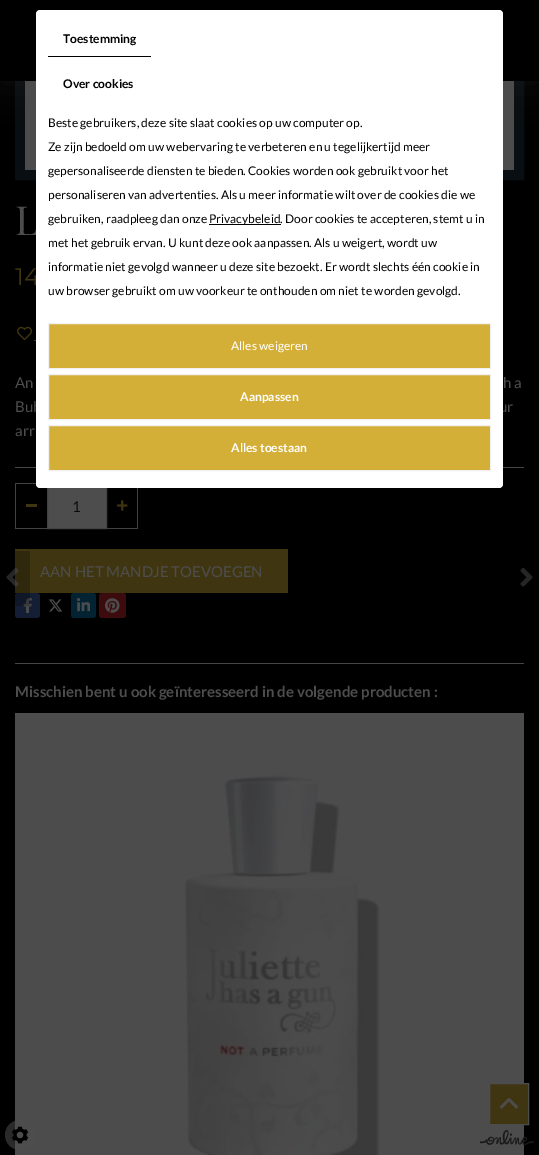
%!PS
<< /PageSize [539 1155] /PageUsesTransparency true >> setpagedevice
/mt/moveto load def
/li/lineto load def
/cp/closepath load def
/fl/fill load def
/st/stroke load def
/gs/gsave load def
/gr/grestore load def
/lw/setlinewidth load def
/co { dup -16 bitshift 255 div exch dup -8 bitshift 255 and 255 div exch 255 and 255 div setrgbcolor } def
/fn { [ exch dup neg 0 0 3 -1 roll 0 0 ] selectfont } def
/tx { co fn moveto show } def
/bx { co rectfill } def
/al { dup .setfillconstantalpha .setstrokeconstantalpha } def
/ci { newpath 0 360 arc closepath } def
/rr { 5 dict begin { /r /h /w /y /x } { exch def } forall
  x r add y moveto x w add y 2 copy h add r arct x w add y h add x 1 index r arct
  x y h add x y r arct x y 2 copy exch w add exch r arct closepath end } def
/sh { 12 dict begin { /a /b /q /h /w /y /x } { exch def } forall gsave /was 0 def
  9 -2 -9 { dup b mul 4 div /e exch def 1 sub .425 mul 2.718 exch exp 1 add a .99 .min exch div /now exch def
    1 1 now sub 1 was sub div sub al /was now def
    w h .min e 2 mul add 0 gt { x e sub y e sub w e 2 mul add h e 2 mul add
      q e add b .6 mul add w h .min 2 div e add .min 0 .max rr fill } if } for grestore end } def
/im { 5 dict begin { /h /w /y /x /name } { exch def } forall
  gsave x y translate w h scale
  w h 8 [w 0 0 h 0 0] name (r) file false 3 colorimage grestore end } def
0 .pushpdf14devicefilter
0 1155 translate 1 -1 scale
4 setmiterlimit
0 0 539 1155 16#000000 bx
16#080E11 co
10 lw
20 -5 499 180 rectstroke
(media/1.raw) 25 81 489 89 im
16#4D4D4D co
0 0 539 81 0 20 .19 sh
0 0 539 81 16#000000 bx
(media/2.raw) 17 326 15 14 im
34 340 2 1 16#403511 bx
15 467 509 1 16#454545 bx
15 483 21 1 16#424242 bx
15 528 32 1 16#424242 bx
15 483 1 46 16#424242 bx
26 504 11 3 16#403511 bx
48 488 58 40 16#4D4D4D bx
16#424242 co
1 lw
47.5 483.5 59 45 rectstroke
137 483 1 46 16#424242 bx
107 528 31 1 16#424242 bx
(media/3.raw) 117 500 11 11 im
15 549 273 44 16#403511 bx
16#141F35 co
15 593 25 25 3 rr fl
(media/4.raw) 23 598 9 15 im
(media/5.raw) 48 599 15 13 im
16#042332 co
71 593 25 25 3 rr fl
(media/6.raw) 77 598 13 14 im
16#3C0B0D co
99 593 27 25 3 rr fl
(media/7.raw) 105 598 15 15 im
0.25 al
15 551 15 55 16#000000 bx
1 al
(media/8.raw) 6 567 13 20 im
(media/9.raw) 520 567 13 20 im
15 663 509 1 16#454545 bx
(media/10.raw) 15 713 509 442 im
16#403511 co
489.5 1083.5 mt 528.5 1083.5 li 528.5 1124.5 li 489.5 1124.5 li cp gs fl gr
16#4D4D4D co
st
(media/11.raw) 500 1098 18 11 im
0.54 al
20 1135 15 ci fl
1 al
(media/12.raw) 11 1126 18 18 im
(media/13.raw) 480 1130 54 15 im
(L) 15 235 /PlayfairDisplay-Regular 40 16#4D4D4D tx
(14) 15 285 /Montserrat-Regular 24 16#403511 tx
(An) 15 388 /Lato-Regular 15 16#4D4D4D tx
(h a) 503 388 /Lato-Regular 15 16#4D4D4D tx
(Bub) 15 412 /Lato-Regular 15 16#4D4D4D tx
(ur) 499 412 /Lato-Regular 15 16#4D4D4D tx
16#FFFFFF co
36 10 467 478 4 rr fl
16#D4AF37 co
48.5 425.5 mt 490.5 425.5 li 490.5 470.5 li 48.5 470.5 li cp gs fl gr
16#F0F0F0 co
st
(Alles toestaan) 231 452 /Lato-Bold 12 16#FFFFFF tx
16#D4AF37 co
48.5 374.5 mt 490.5 374.5 li 490.5 419.5 li 48.5 419.5 li cp gs fl gr
16#F0F0F0 co
st
(Aanpassen) 240 401 /Lato-Bold 12 16#FFFFFF tx
16#D4AF37 co
48.5 323.5 mt 490.5 323.5 li 490.5 368.5 li 48.5 368.5 li cp gs fl gr
16#F0F0F0 co
st
(Alles weigeren) 231 350 /Lato-Regular 12 16#FFFFFF tx
(uw browser gebruikt om uw voorkeur te onthouden om niet te worden gevolgd.) 48 295 /Lato-Regular 12 16#000000 tx
(informatie niet gevolgd wanneer u deze site bezoekt. Er wordt slechts één cookie in) 48 271 /Lato-Regular 12 16#000000 tx
(met het gebruik ervan. U kunt deze ook aanpassen. Als u weigert, wordt uw) 48 247 /Lato-Regular 12 16#000000 tx
209 224 72 1 16#000000 bx
(Privacybeleid. Door cookies te accepteren, stemt u in) 209 223 /Lato-Regular 12 16#000000 tx
(gebruiken, raadpleeg dan onze) 48 223 /Lato-Regular 12 16#000000 tx
(personaliseren van advertenties. Als u meer informatie wilt over de cookies die we) 48 199 /Lato-Regular 12 16#000000 tx
(gepersonaliseerde diensten te bieden. Cookies worden ook gebruikt voor het) 48 175 /Lato-Regular 12 16#000000 tx
(Ze zijn bedoeld om uw webervaring te verbeteren en u tegelijkertijd meer) 48 151 /Lato-Regular 12 16#000000 tx
(Beste gebruikers, deze site slaat cookies op uw computer op.) 48 127 /Lato-Regular 12 16#000000 tx
(Over cookies) 63 88 /Lato-Bold 12 16#000000 tx
(Toestemming) 63 43 /Lato-Bold 12 16#000000 tx
48 56 103 1 16#000000 bx
(arr) 15 436 /Lato-Regular 15 16#4D4D4D tx
(1) 72 512 /Lato-Regular 15 16#0A0A0A tx
(AAN HET MANDJE TOEVOEGEN) 40 577 /Lato-Regular 15 16#4D4D4D tx
(Misschien bent u ook geïnteresseerd in de volgende producten :) 15 697 /Lato-Bold 15 16#4D4D4D tx
.poppdf14devicefilter showpage
